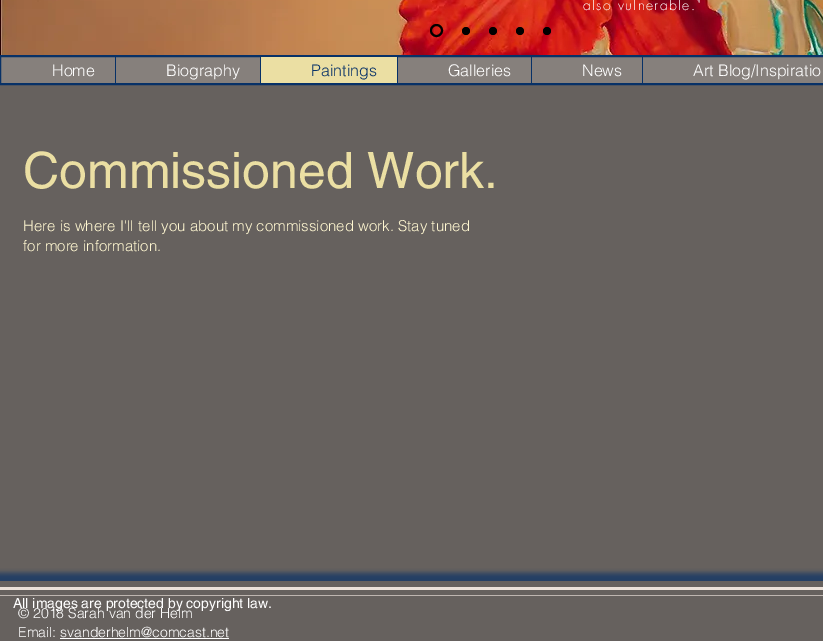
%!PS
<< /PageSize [823 641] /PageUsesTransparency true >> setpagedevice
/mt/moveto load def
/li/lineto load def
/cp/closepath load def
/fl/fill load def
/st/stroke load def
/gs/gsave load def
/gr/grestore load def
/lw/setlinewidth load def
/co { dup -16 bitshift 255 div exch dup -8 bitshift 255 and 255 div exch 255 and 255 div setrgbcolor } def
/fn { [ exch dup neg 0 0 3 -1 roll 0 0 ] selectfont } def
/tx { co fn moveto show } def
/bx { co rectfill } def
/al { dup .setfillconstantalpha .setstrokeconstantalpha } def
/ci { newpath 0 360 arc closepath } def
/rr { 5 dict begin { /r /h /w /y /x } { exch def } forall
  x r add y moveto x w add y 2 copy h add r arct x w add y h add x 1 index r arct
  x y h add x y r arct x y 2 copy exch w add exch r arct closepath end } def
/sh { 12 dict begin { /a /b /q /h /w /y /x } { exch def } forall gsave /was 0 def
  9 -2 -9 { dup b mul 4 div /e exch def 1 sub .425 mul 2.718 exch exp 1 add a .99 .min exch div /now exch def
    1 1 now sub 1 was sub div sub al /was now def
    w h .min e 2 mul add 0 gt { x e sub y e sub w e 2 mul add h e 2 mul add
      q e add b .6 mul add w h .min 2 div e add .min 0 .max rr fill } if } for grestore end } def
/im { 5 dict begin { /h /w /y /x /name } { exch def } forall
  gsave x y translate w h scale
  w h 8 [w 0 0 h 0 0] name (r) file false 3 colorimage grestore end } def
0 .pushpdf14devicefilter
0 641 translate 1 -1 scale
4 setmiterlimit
0 0 823 641 16#66615E bx
(media/1.raw) 0 0 823 55 im
16#000000 co
2 lw
436.5 30.5 5.5 ci st
466 31 4 ci fl
493 31 4 ci fl
520 31 4 ci fl
547 31 4 ci fl
16#86807C co
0 56 mt 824 56 li 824 84 li 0 84 li cp gs fl gr
16#073167 co
st
115 57 1 26 16#073167 bx
261 57 136 26 16#EBDFA3 bx
260 57 1 26 16#073167 bx
397 57 1 26 16#073167 bx
531 57 1 26 16#073167 bx
642 57 1 26 16#073167 bx
gs
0 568 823 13 rectclip
-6 573 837 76 0 2.5 .7 sh
gr
0 587 823 3 16#EBE1D9 bx
0 595 823 1 16#BEB6B0 bx
60 638 169 1 16#FFFFFF bx
/futura-Light 14 fn
583 10 mt 1.4 0 (also vulnerable.") ashow
(Home) 52 76 /helvetica-Light 16 16#FFFFFF tx
(Biography) 166 76 /helvetica-Light 16 16#FFFFFF tx
(Paintings) 311 76 /helvetica-Light 16 16#073167 tx
(Galleries) 448 76 /helvetica-Light 16 16#FFFFFF tx
(News) 582 76 /helvetica-Light 16 16#FFFFFF tx
(Art Blog/Inspiratio) 693 76 /helvetica-Light 16 16#FFFFFF tx
(Commissioned Work.) 23 188 /helvetica-Regular 50 16#EBDFA3 tx
(Here is where I'll tell you about my commissioned work. Stay tuned) 23 231 /helvetica-Light 15 16#FFF7D1 tx
(for more information.) 23 251 /helvetica-Light 15 16#FFF7D1 tx
(© 2018 Sarah van der Helm) 18 618 /helvetica-Light 14 16#FFFFFF tx
(All images are protected by copyright law.) 13 608 /helvetica-Regular 14 16#FFFFFF tx
(Email: svanderhelm@comcast.net) 18 637 /helvetica-Light 14 16#FFFFFF tx
.poppdf14devicefilter showpage
